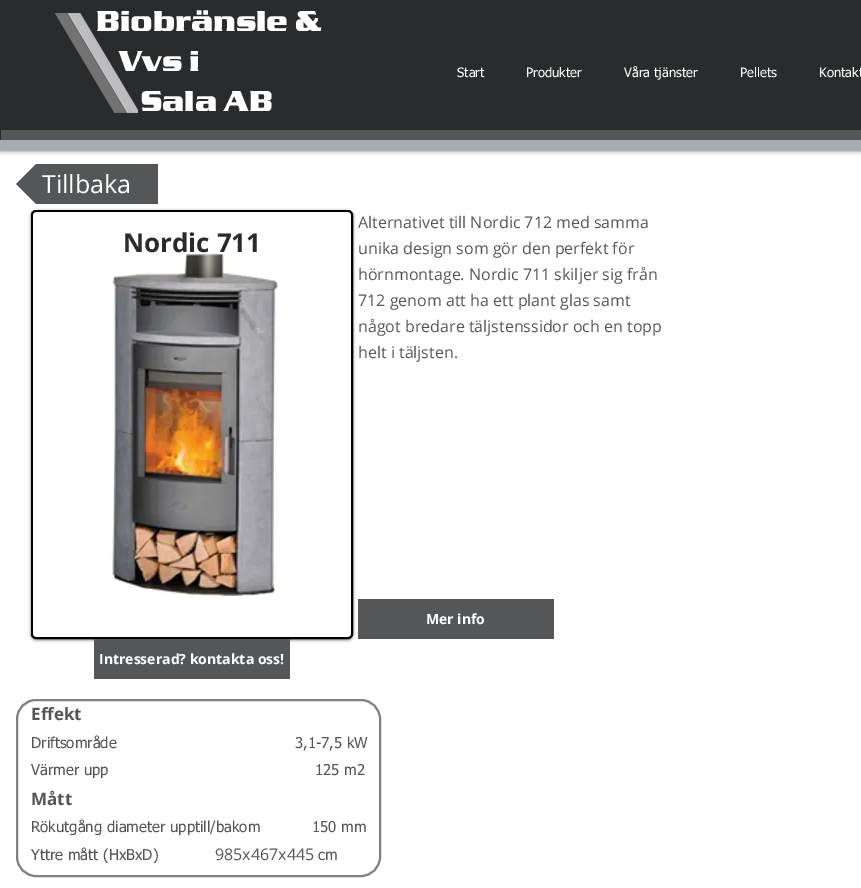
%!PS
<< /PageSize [861 888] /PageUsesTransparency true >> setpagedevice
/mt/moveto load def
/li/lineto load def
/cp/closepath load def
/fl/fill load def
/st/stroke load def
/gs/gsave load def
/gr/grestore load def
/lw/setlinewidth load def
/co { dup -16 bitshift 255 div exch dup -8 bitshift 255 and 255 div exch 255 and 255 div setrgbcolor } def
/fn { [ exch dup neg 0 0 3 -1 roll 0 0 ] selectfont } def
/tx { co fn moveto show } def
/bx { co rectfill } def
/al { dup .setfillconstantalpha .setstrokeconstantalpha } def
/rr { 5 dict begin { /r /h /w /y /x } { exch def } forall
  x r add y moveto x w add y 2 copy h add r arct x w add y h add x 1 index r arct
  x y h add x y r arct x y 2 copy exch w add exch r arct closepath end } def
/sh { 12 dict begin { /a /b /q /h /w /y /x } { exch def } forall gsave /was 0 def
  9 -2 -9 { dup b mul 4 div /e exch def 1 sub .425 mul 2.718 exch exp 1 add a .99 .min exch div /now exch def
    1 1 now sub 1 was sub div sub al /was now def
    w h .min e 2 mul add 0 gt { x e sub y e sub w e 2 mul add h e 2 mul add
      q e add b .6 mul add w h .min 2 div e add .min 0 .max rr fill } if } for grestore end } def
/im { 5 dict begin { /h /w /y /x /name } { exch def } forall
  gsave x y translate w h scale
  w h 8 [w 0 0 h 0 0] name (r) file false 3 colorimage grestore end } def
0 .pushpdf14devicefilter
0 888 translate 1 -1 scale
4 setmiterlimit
0 0 861 888 16#FFFFFF bx
16#000000 co
0 0 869 150 0 2.5 .7 sh
0 0 861 140 16#2A2B2C bx
1 130 860 10 16#545658 bx
0 140 861 10 16#A5ABB0 bx
gs
16 164 142 40 rectclip
16#545658 co
66 184 mt 16 184 li 66 134 li cp 16 184 mt 66 184 li 66 234 li cp fl
gr
66 164 92 40 16#545658 bx
16#000000 co
31 211 322 429 5 1.5 .5 sh
32 211 320 427 4 rr gs fl gr
2 lw
st
(media/2.raw) 33 212 318 425 im
358 599 196 40 16#545658 bx
94 639 196 40 16#545658 bx
16#7F8184 co
17 700 363 176 19 rr st
(Biobränsle &) 96 31 /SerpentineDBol-Bold 30 16#FFFFFF tx
(Vvs i) 119 71 /SerpentineDBol-Bold 30 16#FFFFFF tx
(media/1.raw) 54 12 84 102 im
(Sala AB) 141 111 /SerpentineDBol-Bold 30 16#FFFFFF tx
(Start) 457 77 /tahoma-Regular 13 16#FFFFFF tx
(Produkter) 526 77 /tahoma-Regular 13 16#FFFFFF tx
(Våra tjänster) 624 77 /tahoma-Regular 13 16#FFFFFF tx
(Pellets) 740 77 /tahoma-Regular 13 16#FFFFFF tx
(Kontakt) 819 77 /tahoma-Regular 13 16#FFFFFF tx
(Tillbaka) 42 193 /OpenSans-Regular 25 16#FFFFFF tx
(Alternativet till Nordic 712 med samma) 358 228 /OpenSans-Regular 16 16#545658 tx
(unika design som gör den perfekt för) 358 254 /OpenSans-Regular 16 16#545658 tx
(hörnmontage. Nordic 711 skiljer sig från) 358 280 /OpenSans-Regular 16 16#545658 tx
(712 genom att ha ett plant glas samt) 358 306 /OpenSans-Regular 16 16#545658 tx
(något bredare täljstenssidor och en topp) 358 332 /OpenSans-Regular 16 16#545658 tx
(helt i täljsten.) 358 358 /OpenSans-Regular 16 16#545658 tx
(Nordic 711) 123 252 /OpenSans-Bold 26 16#2A2B2C tx
(Mer info) 426 624 /OpenSans-Bold 14 16#FFFFFF tx
(Intresserad? kontakta oss!) 99 664 /OpenSans-Bold 14 16#FFFFFF tx
(Effekt) 31 720 /OpenSans-Bold 17 16#545658 tx
(Driftsområde                                      3,1-7,5 kW) 31 748 /tahoma-Regular 15 16#545658 tx
(Värmer upp                                            125 m2) 31 775 /tahoma-Regular 15 16#545658 tx
(Mått) 31 805 /OpenSans-Bold 17 16#545658 tx
(Rökutgång diameter upptill/bakom           150 mm) 31 832 /tahoma-Regular 15 16#545658 tx
(Yttre mått \(HxBxD\)) 31 860 /tahoma-Regular 15 16#545658 tx
(985x467x445) 215 860 /OpenSans-Regular 16 16#545658 tx
(cm) 318 860 /tahoma-Regular 15 16#545658 tx
.poppdf14devicefilter showpage
